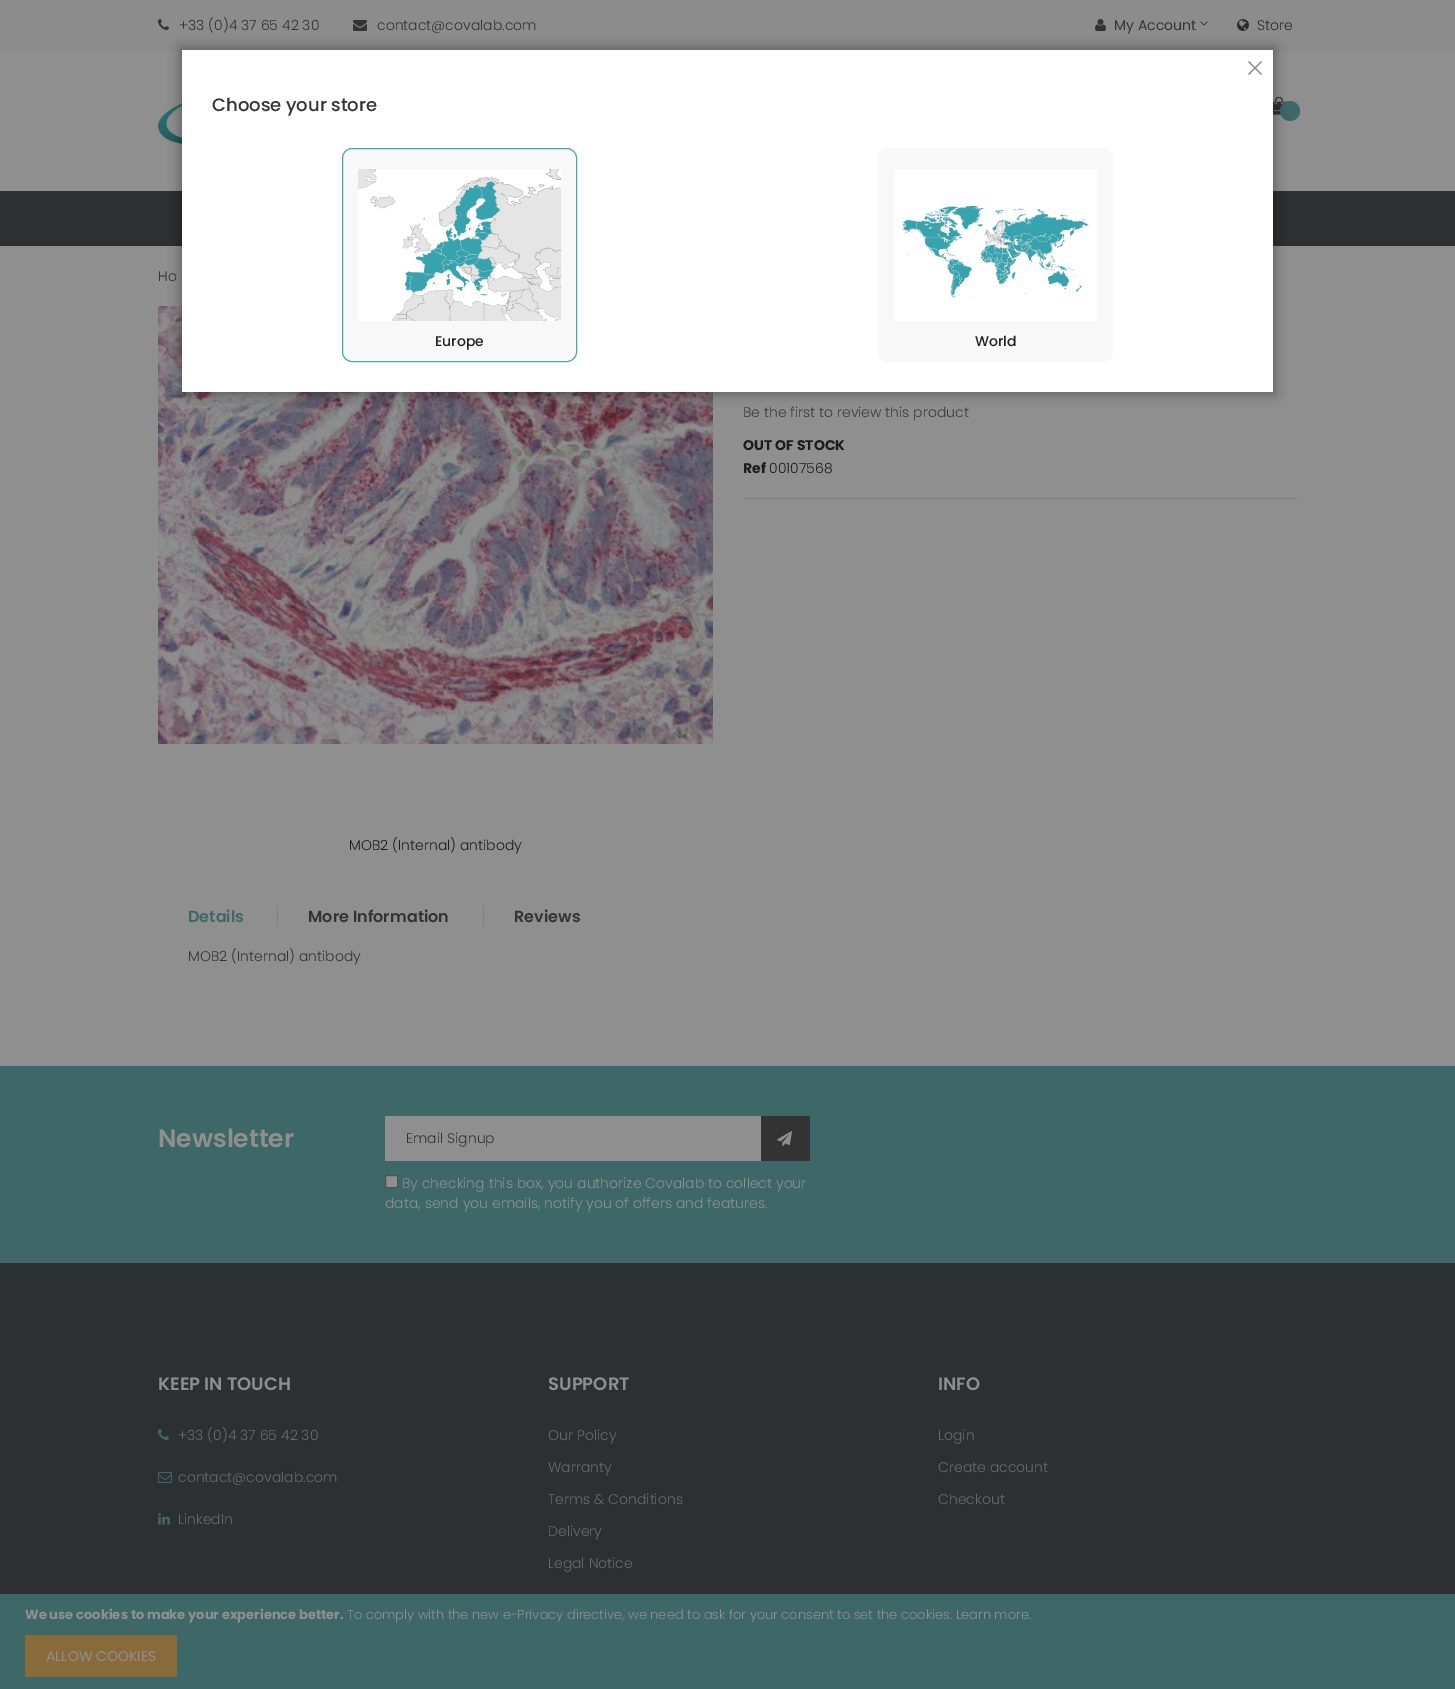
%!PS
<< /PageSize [1455 1689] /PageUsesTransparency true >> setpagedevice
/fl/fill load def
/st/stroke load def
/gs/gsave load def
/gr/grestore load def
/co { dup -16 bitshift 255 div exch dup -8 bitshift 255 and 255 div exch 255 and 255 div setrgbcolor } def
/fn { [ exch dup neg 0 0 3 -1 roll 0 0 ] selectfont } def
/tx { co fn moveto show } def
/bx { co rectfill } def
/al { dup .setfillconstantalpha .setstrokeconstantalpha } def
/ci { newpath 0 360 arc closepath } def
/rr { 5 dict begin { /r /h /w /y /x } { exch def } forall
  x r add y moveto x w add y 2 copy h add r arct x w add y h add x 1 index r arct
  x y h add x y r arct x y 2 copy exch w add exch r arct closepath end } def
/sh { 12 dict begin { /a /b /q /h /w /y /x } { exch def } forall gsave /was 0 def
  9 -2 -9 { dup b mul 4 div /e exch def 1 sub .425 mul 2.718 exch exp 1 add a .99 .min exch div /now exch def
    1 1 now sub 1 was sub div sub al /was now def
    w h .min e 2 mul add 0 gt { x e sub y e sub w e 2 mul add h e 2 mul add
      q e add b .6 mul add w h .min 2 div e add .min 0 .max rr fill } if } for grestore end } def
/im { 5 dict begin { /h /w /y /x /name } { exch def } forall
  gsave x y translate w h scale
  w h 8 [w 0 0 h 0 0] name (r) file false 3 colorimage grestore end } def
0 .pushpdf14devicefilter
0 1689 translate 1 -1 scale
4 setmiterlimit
0 0 1455 1689 16#8F8F8F bx
0 0 1455 51 16#8C8C8C bx
(media/1.raw) 158 19 11 11 im
(media/2.raw) 353 20 14 11 im
(media/3.raw) 1095 19 11 12 im
(media/4.raw) 1200 21 8 5 im
(media/5.raw) 1237 19 12 12 im
(media/6.raw) 158 96 24 50 im
(media/7.raw) 1273 97 14 18 im
16#3E6767 co
1290 111 10 ci fl
0 191 1455 55 16#2D3033 bx
743 498 555 1 16#7F7F7F bx
(media/8.raw) 158 306 555 438 im
277 906 1 20 16#7F7F7F bx
483 906 1 20 16#7F7F7F bx
0 1066 1455 197 16#3E6767 bx
385 1116 376 45 16#8F8F8F bx
761 1116 49 45 16#333333 bx
(media/9.raw) 777 1131 15 16 im
16#8F8F8F co
385.5 1175.5 12 12 1.5 rr gs fl gr
16#515151 co
st
0 1263 1455 331 16#2D3033 bx
(media/10.raw) 158 1429 11 11 im
(media/11.raw) 158 1472 14 11 im
(media/12.raw) 158 1513 12 12 im
16#000000 co
180 48 1095 346 0 6 .35 sh
182 50 1091 342 16#FFFFFF bx
(media/13.raw) 1248 61 14 14 im
16#F8F8F8 co
342.5 148.5 234 213 9.5 rr gs fl gr
16#4CA7A7 co
st
(media/14.raw) 358 169 203 152 im
16#F8F8F8 co
878 148 235 214 10 rr fl
(media/15.raw) 894 169 203 152 im
0 1594 1455 95 16#3E6767 bx
25 1635 152 42 16#896A3A bx
(+33 \(0\)4 37 65 42 30) 179 30 /Poppins-Light 14 16#333333 tx
(contact@covalab.com) 377 30 /Poppins-Light 14 16#333333 tx
(My Account) 1114 30 /Poppins-Regular 14 16#333333 tx
(Store) 1257 30 /Poppins-Light 14 16#2B2B2B tx
(Ho) 158 281 /Poppins-Light 14 16#333333 tx
(Be the first to review this product) 743 417 /Poppins-Light 14 16#3B3B3B tx
(OUT OF STOCK) 743 450 /Poppins-Bold 14 16#1C1C1C tx
(Ref) 743 473 /Poppins-Bold 14 16#1C1C1C tx
(00107568) 769 473 /Poppins-Light 14 16#1C1C1C tx
(MOB2 \(Internal\) antibody) 349 850 /Poppins-Light 14 16#1C1C1C tx
(Details) 188 922 /Poppins-SemiBold 16 16#3E6767 tx
(More Information) 308 922 /Poppins-SemiBold 16 16#333333 tx
(Reviews) 514 922 /Poppins-SemiBold 16 16#333333 tx
(MOB2 \(Internal\) antibody) 188 961 /Poppins-Light 14 16#333333 tx
(Newsletter) 158 1147 /Poppins-SemiBold 25 16#8F8F8F tx
(Email Signup) 406 1143 /Poppins-Light 14 16#333333 tx
(By checking this box, you authorize Covalab to collect your) 402 1188 /Poppins-Light 14 16#8F8F8F tx
(data, send you emails, notify you of offers and features.) 385 1208 /Poppins-Light 14 16#8F8F8F tx
(KEEP IN TOUCH) 158 1390 /Poppins-SemiBold 18 16#8F8F8F tx
(+33 \(0\)4 37 65 42 30) 178 1440 /Poppins-Light 14 16#696969 tx
(contact@covalab.com) 178 1482 /Poppins-Light 14 16#696969 tx
(LinkedIn) 178 1524 /Poppins-Light 14 16#696969 tx
(SUPPORT) 548 1390 /Poppins-SemiBold 18 16#8F8F8F tx
(Our Policy) 548 1440 /Poppins-Light 14 16#696969 tx
(Warranty) 548 1472 /Poppins-Light 14 16#696969 tx
(Terms & Conditions) 548 1504 /Poppins-Light 14 16#696969 tx
(Delivery) 548 1536 /Poppins-Light 14 16#696969 tx
(Legal Notice) 548 1568 /Poppins-Light 14 16#696969 tx
(INFO) 938 1390 /Poppins-SemiBold 18 16#8F8F8F tx
(Login) 938 1440 /Poppins-Light 14 16#696969 tx
(Create account) 938 1472 /Poppins-Light 14 16#696969 tx
(Checkout) 938 1504 /Poppins-Light 14 16#696969 tx
(Choose your store) 212 111 /Poppins-Medium 18 16#333333 tx
(Europe) 435 346 /Poppins-Medium 14 16#222222 tx
(World) 975 346 /Poppins-Medium 14 16#222222 tx
(We use cookies to make your experience better.) 25 1619 /Poppins-Bold 13 16#8F8F8F tx
(To comply with the new e-Privacy directive, we need to ask for your consent to set the cookies. Learn more.) 347 1619 /Poppins-Light 13 16#8F8F8F tx
(ALLOW COOKIES) 46 1661 /Poppins-Regular 14 16#8F8F8F tx
.poppdf14devicefilter showpage
